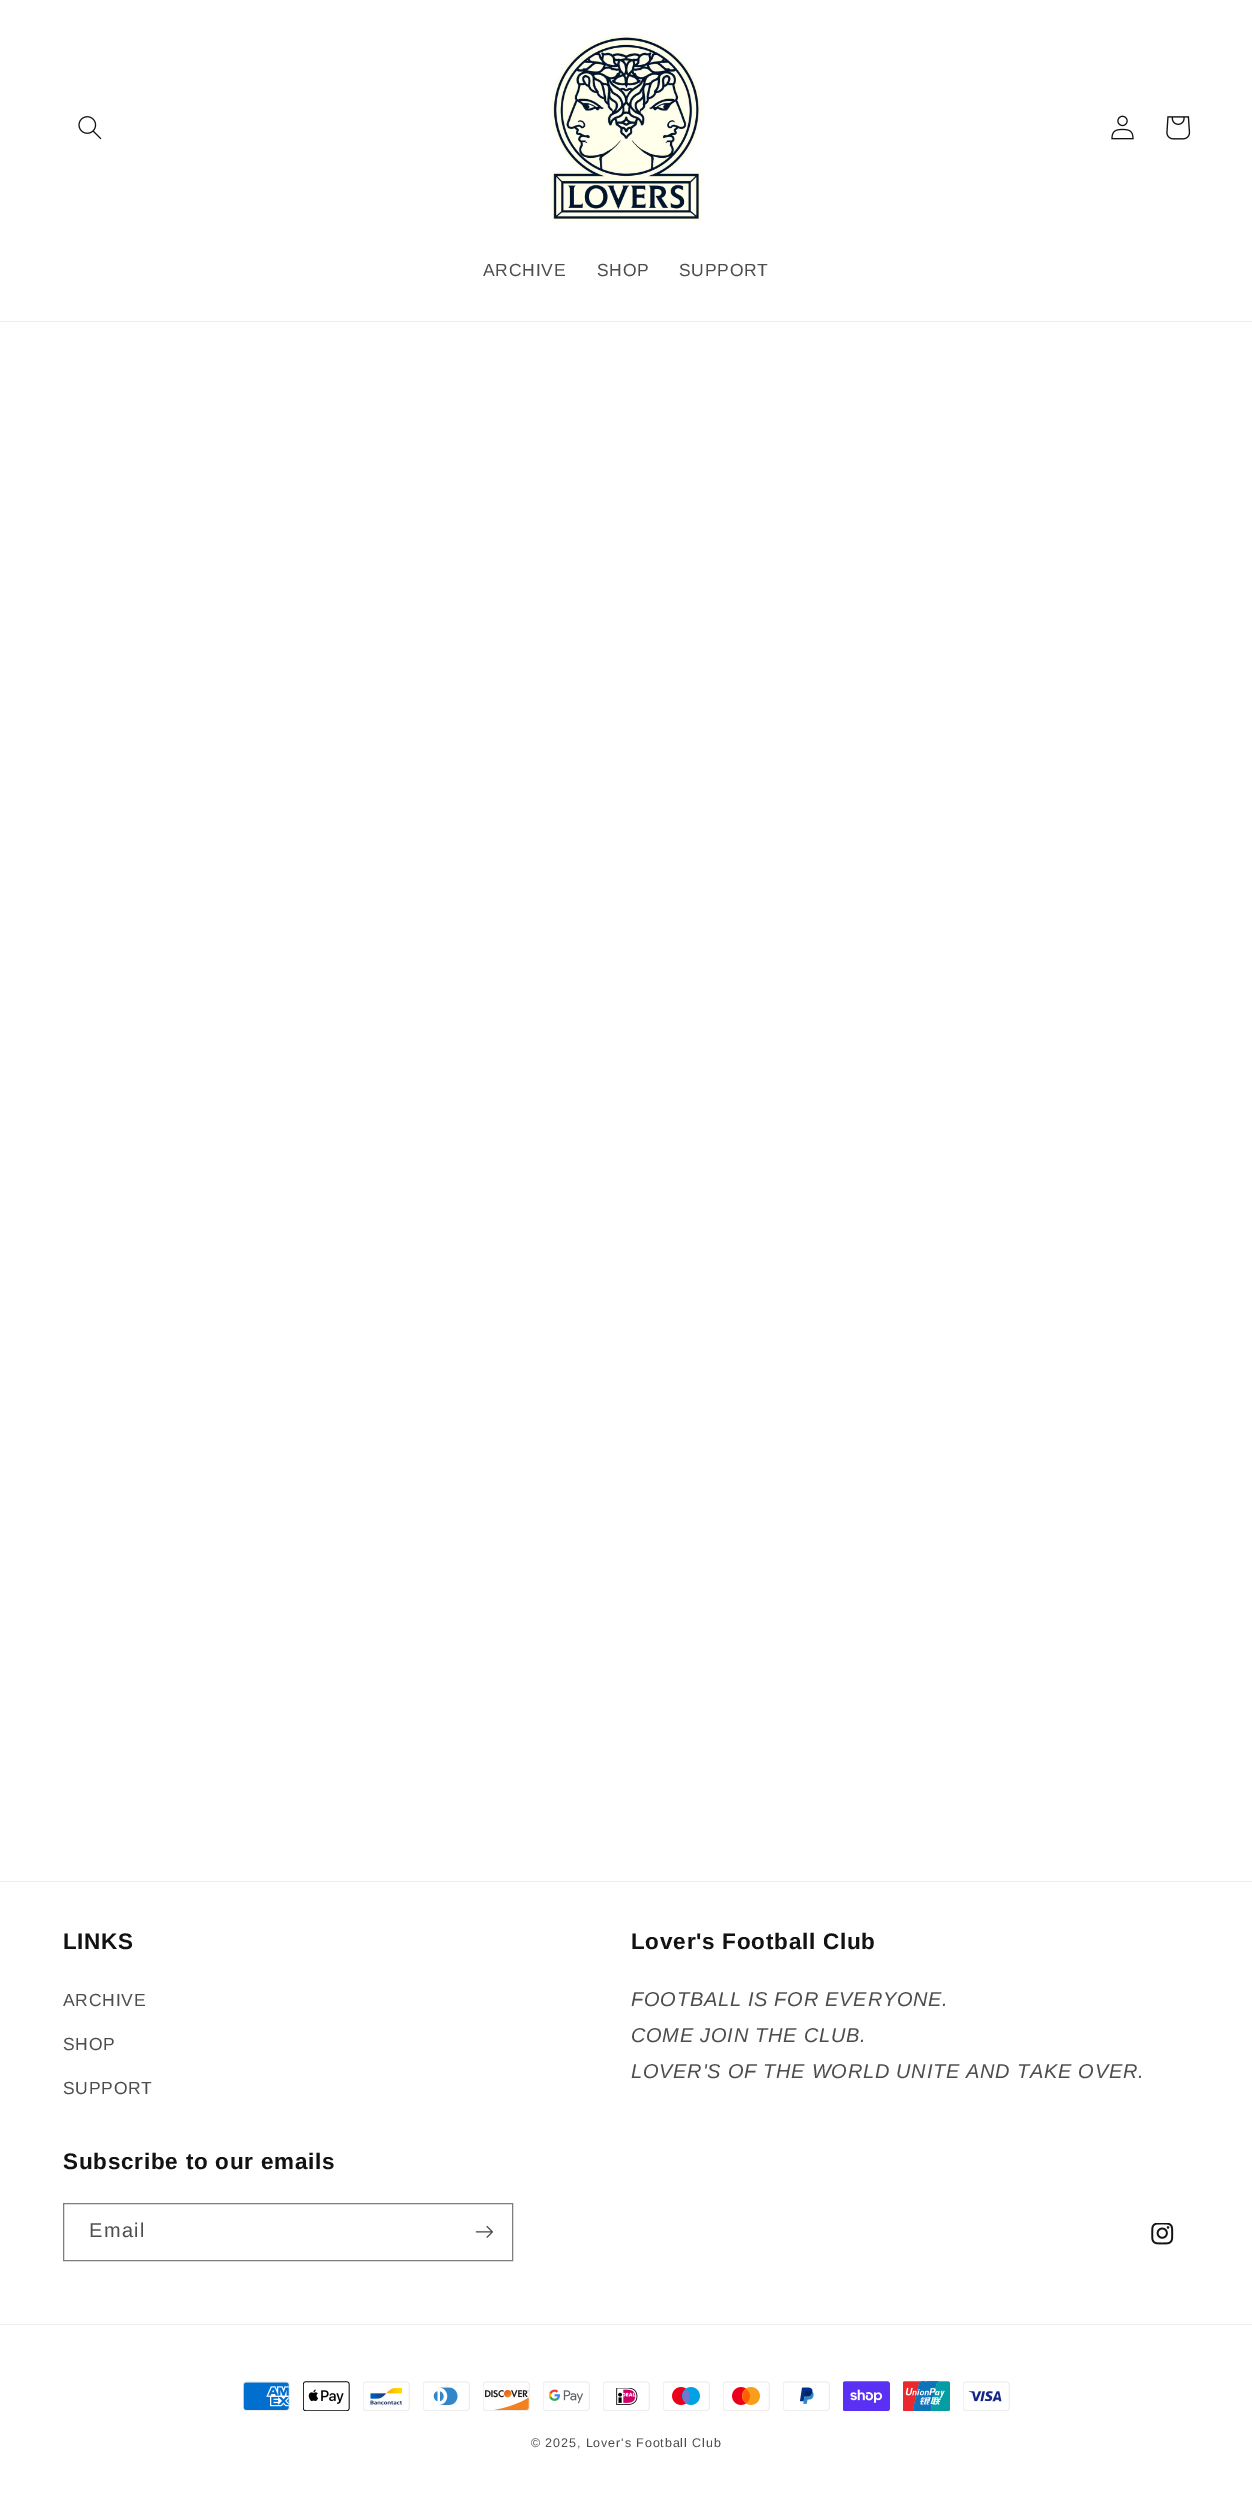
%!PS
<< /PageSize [1252 2500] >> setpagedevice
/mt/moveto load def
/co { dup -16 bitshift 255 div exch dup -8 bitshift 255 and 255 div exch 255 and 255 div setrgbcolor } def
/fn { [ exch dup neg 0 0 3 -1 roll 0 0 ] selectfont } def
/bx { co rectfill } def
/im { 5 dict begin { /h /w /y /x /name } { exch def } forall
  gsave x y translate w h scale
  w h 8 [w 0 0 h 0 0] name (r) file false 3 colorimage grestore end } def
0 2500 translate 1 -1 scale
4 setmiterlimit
0 0 1252 2500 16#FFFFFF bx
0 321 1252 1 16#ECECEC bx
(media/1.raw) 78 116 24 24 im
(media/2.raw) 551 35 151 187 im
(media/3.raw) 1111 115 23 25 im
(media/4.raw) 1166 116 25 24 im
0 1881 1252 1 16#ECECEC bx
16#7D7D7D co
63.5 2203.5 449 57 rectstroke
(media/5.raw) 475 2225 18 13 im
(media/6.raw) 1151 2223 23 22 im
0 2324 1252 1 16#ECECEC bx
(media/7.raw) 243 2381 47 30 im
(media/8.raw) 303 2381 47 30 im
(media/9.raw) 363 2381 47 30 im
(media/10.raw) 423 2381 47 30 im
(media/11.raw) 483 2381 47 30 im
(media/12.raw) 543 2381 47 30 im
(media/13.raw) 603 2381 47 30 im
(media/14.raw) 663 2381 47 30 im
(media/15.raw) 723 2381 47 30 im
(media/16.raw) 783 2381 47 30 im
(media/17.raw) 843 2381 47 30 im
(media/18.raw) 903 2381 47 30 im
(media/19.raw) 963 2381 47 30 im
/LiberationSans-Regular 17.5 fn
16#4D4D4D co
483 276 mt .75 0 (ARCHIVE) ashow
597 276 mt .75 0 (SHOP) ashow
679 276 mt .75 0 (SUPPORT) ashow
/LiberationSans-Bold 22.5 fn
16#121212 co
63 1949 mt .75 0 (LINKS) ashow
/LiberationSans-Regular 17.5 fn
16#4D4D4D co
63 2006 mt .75 0 (ARCHIVE) ashow
63 2050 mt .75 0 (SHOP) ashow
63 2094 mt .75 0 (SUPPORT) ashow
/LiberationSans-Bold 22.5 fn
16#121212 co
631 1949 mt .75 0 (Lover's Football Club) ashow
/LiberationSans-Italic 20 fn
16#4D4D4D co
631 2006 mt .75 0 (FOOTBALL IS FOR EVERYONE.) ashow
631 2042 mt .75 0 (COME JOIN THE CLUB.) ashow
631 2078 mt .75 0 (LOVER'S OF THE WORLD UNITE AND TAKE OVER.) ashow
/LiberationSans-Bold 22.5 fn
16#121212 co
63 2169 mt .75 0 (Subscribe to our emails) ashow
/LiberationSans-Regular 20 fn
16#4D4D4D co
89 2237 mt 1.25 0 (Email) ashow
/LiberationSans-Regular 12.5 fn
531 2447 mt .9 0 (© 2025, Lover's Football Club) ashow
showpage
